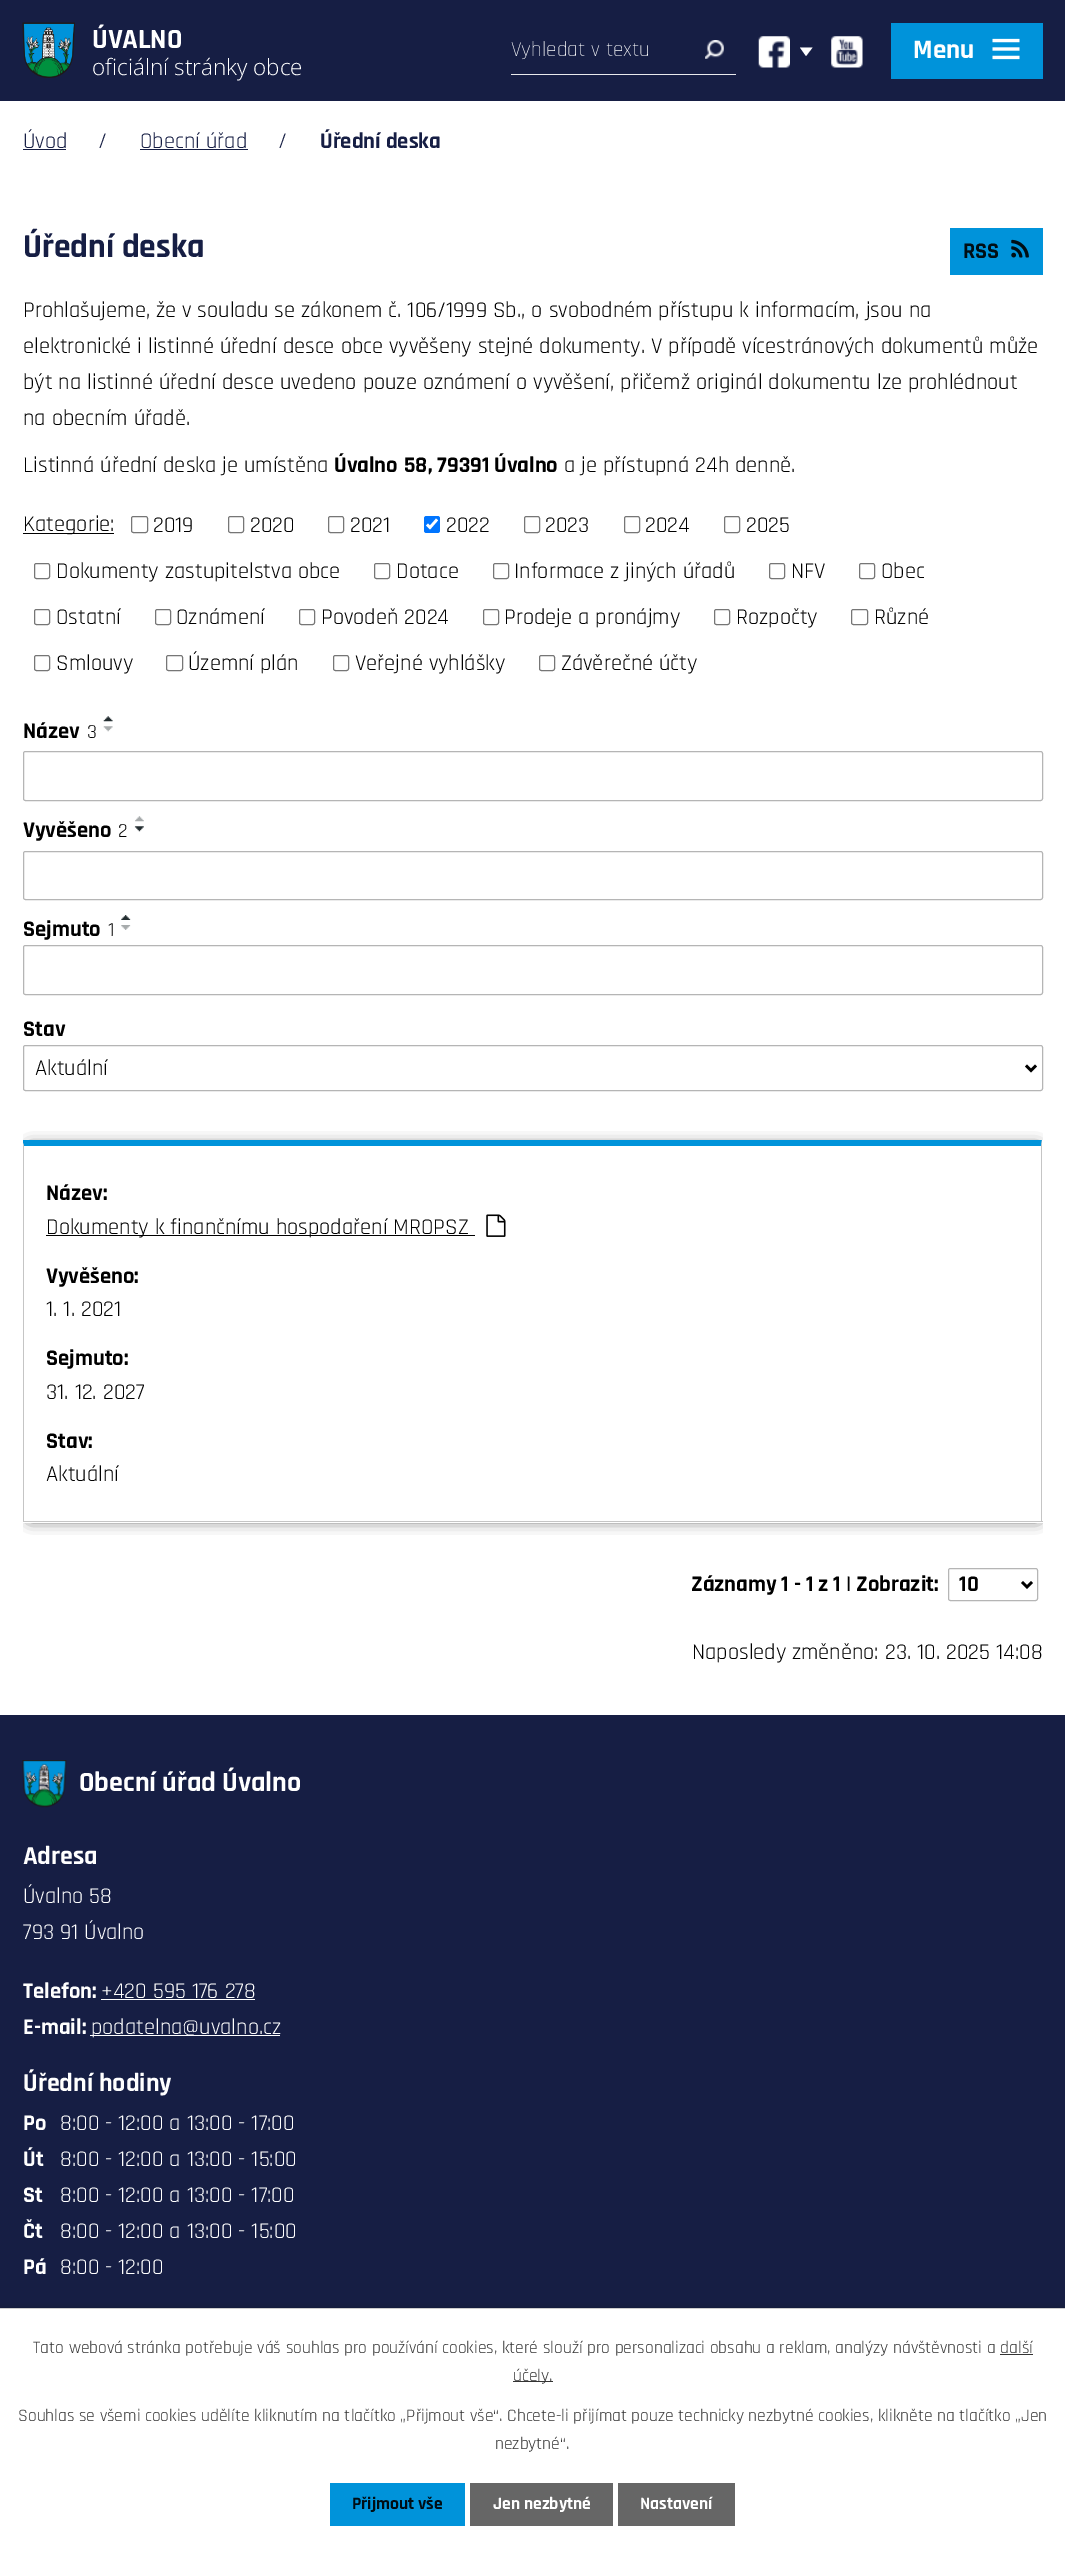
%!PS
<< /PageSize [1065 2549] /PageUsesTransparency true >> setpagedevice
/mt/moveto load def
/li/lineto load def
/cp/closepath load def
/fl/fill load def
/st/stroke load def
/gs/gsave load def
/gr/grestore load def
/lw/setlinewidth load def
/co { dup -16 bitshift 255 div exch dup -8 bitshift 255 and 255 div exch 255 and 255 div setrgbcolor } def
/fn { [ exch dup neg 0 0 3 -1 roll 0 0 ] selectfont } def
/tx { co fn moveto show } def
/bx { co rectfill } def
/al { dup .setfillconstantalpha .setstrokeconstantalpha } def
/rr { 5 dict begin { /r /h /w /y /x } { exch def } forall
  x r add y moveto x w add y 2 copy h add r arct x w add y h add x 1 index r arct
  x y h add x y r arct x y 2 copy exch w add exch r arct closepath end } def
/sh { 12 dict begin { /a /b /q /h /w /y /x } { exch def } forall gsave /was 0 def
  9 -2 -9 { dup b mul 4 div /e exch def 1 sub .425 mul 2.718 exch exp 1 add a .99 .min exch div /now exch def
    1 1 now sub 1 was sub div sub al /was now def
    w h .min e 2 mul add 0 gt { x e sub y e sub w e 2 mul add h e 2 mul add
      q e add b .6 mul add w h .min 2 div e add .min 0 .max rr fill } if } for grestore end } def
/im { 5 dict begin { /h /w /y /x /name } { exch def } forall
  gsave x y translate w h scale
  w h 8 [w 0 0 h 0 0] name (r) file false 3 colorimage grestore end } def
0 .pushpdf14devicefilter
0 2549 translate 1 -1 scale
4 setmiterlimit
0 0 1065 2549 16#FFFFFF bx
0 0 1065 101 16#161E44 bx
(media/1.raw) 22 22 53 56 im
(media/2.raw) 705 40 19 19 im
511 74 225 1 16#E8E9EC bx
(media/3.raw) 758 36 32 32 im
16#FFFFFF co
800 47.5 mt 812.5 47.5 li 806 56 li cp fl
(media/4.raw) 831 36 32 32 im
891 23 152 56 16#0093DA bx
(media/5.raw) 992 38 28 22 im
23 149 43 1 16#161E44 bx
140 149 108 1 16#161E44 bx
950 228 93 47 16#0093DA bx
(media/6.raw) 1011 239 18 19 im
23 533 91 1 16#000000 bx
16#767676 co
131.5 516.5 16 16 2 rr st
228.5 516.5 15 16 2 rr st
328.5 516.5 15 16 2 rr st
16#0075FF co
424 516 16 17 2.5 rr fl
16#FFFFFF co
2.6 lw
427 524.5 mt 430 527.5 li 437 519.5 li st
16#767676 co
1 lw
524.5 516.5 15 16 2 rr st
624.5 516.5 15 16 2 rr st
724.5 516.5 15 16 2 rr st
34.5 563.5 15 15 2 rr st
374.5 563.5 15 15 2 rr st
493.5 563.5 15 15 2 rr st
769.5 563.5 15 15 2 rr st
859.5 563.5 15 15 2 rr st
34.5 609.5 15 15 2 rr st
155.5 609.5 15 15 2 rr st
299.5 609.5 15 15 2 rr st
483.5 609.5 15 15 2 rr st
714.5 609.5 15 15 2 rr st
851.5 609.5 16 15 2 rr st
34.5 655.5 15 15 2 rr st
166.5 655.5 16 15 2 rr st
333.5 655.5 15 15 2 rr st
539.5 655.5 15 15 2 rr st
(media/7.raw) 103 716 10 6 im
(media/8.raw) 103 726 10 6 im
(media/9.raw) 135 816 9 6 im
(media/10.raw) 134 826 10 6 im
(media/11.raw) 121 915 10 5 im
(media/12.raw) 121 925 10 5 im
16#B5B5B5 co
23.5 751.5 1019 49 2 rr st
23.5 851.5 1019 48 2 rr st
23.5 945.5 1019 49 2 rr st
23.5 1045.5 1019 45 2 rr st
16#000000 co
2.5 lw
1026 1065.5 mt 1031 1070.5 li 1036 1065.5 li st
gs
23 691 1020 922 rectclip
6 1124 mt 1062 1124 li 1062 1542 li 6 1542 li cp 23 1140 mt 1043 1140 li 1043 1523 li 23 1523 li cp eoclip newpath
30 1148 1008 370 0 7.5 1 sh
gr
gs
23 691 1020 922 rectclip
16#0093DA co
22 1140 mt 1042 1140 li 1041 1146 li 24 1146 li cp fl
gr
16#C5C5C5 co
1042 1140 mt 1042 1522 li 1041 1521 li 1041 1146 li cp fl
23 1521 1020 1 16#C5C5C5 bx
gs
23 691 1020 922 rectclip
22 1522 mt 22 1140 li 24 1146 li 24 1521 li cp fl
gr
46 1235 429 1 16#000000 bx
(media/13.raw) 486 1214 20 23 im
16#B5B5B5 co
1 lw
948.5 1568.5 89 32 2 rr st
16#000000 co
2.5 lw
1022 1582 mt 1027 1587 li 1032 1582 li st
0 1715 1065 593 16#161E44 bx
(media/14.raw) 22 1760 45 48 im
101 1999 154 1 16#FFFFFF bx
90 2035 190 1 16#FFFFFF bx
16#000000 co
0 2308 1065 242 0 3 .2 sh
0 2309 1065 240 16#FFFFFF bx
0 2308 1065 1 16#CCCCCC bx
1000 2354 33 1 16#333333 bx
513 2381 40 1 16#333333 bx
330 2483 135 43 16#0093DA bx
470 2483 143 43 16#666666 bx
618 2483 117 43 16#666666 bx
(ÚVALNO) 92 48 /Rajdhani-Bold 28 16#FFFFFF tx
(oficiální stránky obce) 92 75 /OpenSans-Light 22.5 16#FFFFFF tx
(Vyhledat v textu) 511 56 /Rajdhani-Light 21.25 16#FFFFFF tx
(Menu) 913 58 /Rajdhani-Bold 27 16#FFFFFF tx
(Úvod) 23 148 /Rajdhani-Regular 22.5 16#161E44 tx
(/) 98 148 /Rajdhani-Regular 22.5 16#161E44 tx
(Obecní úřad) 140 148 /Rajdhani-Regular 22.5 16#161E44 tx
(/) 278 148 /Rajdhani-Regular 22.5 16#161E44 tx
(Úřední deska) 320 148 /Rajdhani-Bold 22.5 16#161E44 tx
(Úřední deska) 23 257 /Rajdhani-Bold 33.75 16#161E44 tx
(RSS) 963 258 /Rajdhani-Bold 22.5 16#000E15 tx
(Prohlašujeme, že v souladu se zákonem č. 106/1999 Sb., o svobodném přístupu k informacím, jsou na) 23 317 /Rajdhani-Regular 22.5 16#000000 tx
(elektronické i listinné úřední desce obce vyvěšeny stejné dokumenty. V případě vícestránových dokumentů může) 23 353 /Rajdhani-Regular 22.5 16#000000 tx
(být na listinné úřední desce uvedeno pouze oznámení o vyvěšení, přičemž originál dokumentu lze prohlédnout) 23 389 /Rajdhani-Regular 22.5 16#000000 tx
(na obecním úřadě.) 23 425 /Rajdhani-Regular 22.5 16#000000 tx
(Listinná úřední deska je umístěna) 23 472 /Rajdhani-Regular 22.5 16#000000 tx
(Úvalno) 334 472 /Rajdhani-Bold 22.5 16#000000 tx
(58, 79391 Úvalno) 404 472 /Rajdhani-Bold 22.5 16#000000 tx
(a je přístupná 24h denně.) 564 472 /Rajdhani-Regular 22.5 16#000000 tx
(Kategorie:) 23 531 /Rajdhani-Regular 22.5 16#000000 tx
(2019) 153 532 /Rajdhani-Regular 22.5 16#000000 tx
(2020) 250 532 /Rajdhani-Regular 22.5 16#000000 tx
(2021) 350 532 /Rajdhani-Regular 22.5 16#000000 tx
(2022) 446 532 /Rajdhani-Regular 22.5 16#000000 tx
(2023) 545 532 /Rajdhani-Regular 22.5 16#000000 tx
(2024) 645 532 /Rajdhani-Regular 22.5 16#000000 tx
(2025) 746 532 /Rajdhani-Regular 22.5 16#000000 tx
(Dokumenty zastupitelstva obce) 56 578 /Rajdhani-Regular 22.5 16#000000 tx
(Dotace) 396 578 /Rajdhani-Regular 22.5 16#000000 tx
(Informace z jiných úřadů) 514 578 /Rajdhani-Regular 22.5 16#000000 tx
(NFV) 791 578 /Rajdhani-Regular 22.5 16#000000 tx
(Obec) 881 578 /Rajdhani-Regular 22.5 16#000000 tx
(Ostatní) 56 624 /Rajdhani-Regular 22.5 16#000000 tx
(Oznámení) 176 624 /Rajdhani-Regular 22.5 16#000000 tx
(Povodeň 2024) 321 624 /Rajdhani-Regular 22.5 16#000000 tx
(Prodeje a pronájmy) 504 624 /Rajdhani-Regular 22.5 16#000000 tx
(Rozpočty) 736 624 /Rajdhani-Regular 22.5 16#000000 tx
(Různé) 874 624 /Rajdhani-Regular 22.5 16#000000 tx
(Smlouvy) 56 670 /Rajdhani-Regular 22.5 16#000000 tx
(Územní plán) 188 670 /Rajdhani-Regular 22.5 16#000000 tx
(Veřejné vyhlášky) 355 670 /Rajdhani-Regular 22.5 16#000000 tx
(Závěrečné účty) 561 670 /Rajdhani-Regular 22.5 16#000000 tx
(Název) 23 738 /Rajdhani-Bold 22.5 16#000000 tx
(3) 87 738 /Rajdhani-Regular 20 16#000000 tx
(Vyvěšeno) 23 837 /Rajdhani-Bold 22.5 16#000000 tx
(2) 118 837 /Rajdhani-Regular 20 16#000000 tx
(Sejmuto) 23 936 /Rajdhani-Bold 22.5 16#000000 tx
(1) 108 936 /Rajdhani-Regular 20 16#000000 tx
(Stav) 23 1036 /Rajdhani-Bold 22.5 16#000000 tx
(Aktuální) 35 1075 /Rajdhani-Regular 22.5 16#000000 tx
(Název:) 46 1200 /Rajdhani-Bold 22.5 16#000000 tx
(Dokumenty k finančnímu hospodaření MROPSZ) 46 1234 /Rajdhani-Regular 22.5 16#000000 tx
(Vyvěšeno:) 46 1283 /Rajdhani-Bold 22.5 16#000000 tx
(1. 1. 2021) 46 1316 /Rajdhani-Regular 22.5 16#000000 tx
(Sejmuto:) 46 1365 /Rajdhani-Bold 22.5 16#000000 tx
(31. 12. 2027) 46 1399 /Rajdhani-Regular 22.5 16#000000 tx
(Stav:) 46 1448 /Rajdhani-Bold 22.5 16#000000 tx
(Aktuální) 46 1481 /Rajdhani-Regular 22.5 16#000000 tx
(Záznamy 1 - 1 z 1 | Zobrazit:) 691 1591 /Rajdhani-Bold 22.5 16#000000 tx
(10) 959 1591 /Rajdhani-Bold 22.5 16#000000 tx
(Naposledy změněno: 23. 10. 2025 14:08) 692 1659 /Rajdhani-Regular 22.5 16#000000 tx
(Obecní úřad Úvalno) 79 1791 /Rajdhani-Bold 28 16#FFFFFF tx
(Adresa) 23 1864 /Rajdhani-Bold 26 16#FFFFFF tx
(Úvalno 58) 23 1903 /Rajdhani-Regular 22.5 16#FFFFFF tx
(793 91 Úvalno) 23 1939 /Rajdhani-Regular 22.5 16#FFFFFF tx
(Telefon:) 23 1998 /Rajdhani-Bold 22.5 16#FFFFFF tx
(+420 595 176 278) 101 1998 /Rajdhani-Regular 22.5 16#FFFFFF tx
(E-mail:) 23 2034 /Rajdhani-Bold 22.5 16#FFFFFF tx
(podatelna@uvalno.cz) 91 2034 /Rajdhani-Regular 22.5 16#FFFFFF tx
(Úřední hodiny) 23 2091 /Rajdhani-Bold 26 16#FFFFFF tx
(Po) 23 2130 /Rajdhani-Bold 22.5 16#FFFFFF tx
(8:00 - 12:00 a 13:00 - 17:00) 60 2130 /Rajdhani-Regular 22.5 16#FFFFFF tx
(Út) 23 2166 /Rajdhani-Bold 22.5 16#FFFFFF tx
(8:00 - 12:00 a 13:00 - 15:00) 60 2166 /Rajdhani-Regular 22.5 16#FFFFFF tx
(St) 23 2202 /Rajdhani-Bold 22.5 16#FFFFFF tx
(8:00 - 12:00 a 13:00 - 17:00) 60 2202 /Rajdhani-Regular 22.5 16#FFFFFF tx
(Čt) 23 2238 /Rajdhani-Bold 22.5 16#FFFFFF tx
(8:00 - 12:00 a 13:00 - 15:00) 60 2238 /Rajdhani-Regular 22.5 16#FFFFFF tx
(Pá) 23 2274 /Rajdhani-Bold 22.5 16#FFFFFF tx
(8:00 - 12:00) 60 2274 /Rajdhani-Regular 22.5 16#FFFFFF tx
(Tato webová stránka potřebuje váš souhlas pro používání cookies, které slouží pro personalizaci obsahu a reklam, analýzy návštěvnosti a další) 33 2353 /Rajdhani-Regular 17.5 16#333333 tx
(účely.) 513 2381 /Rajdhani-Regular 17.5 16#333333 tx
(Souhlas se všemi cookies udělíte kliknutím na tlačítko „Přijmout vše“. Chcete-li přijímat pouze technicky nezbytné cookies, klikněte na tlačítko „Jen) 18 2421 /Rajdhani-Regular 17.5 16#333333 tx
(nezbytné“.) 495 2449 /Rajdhani-Regular 17.5 16#333333 tx
(Přijmout vše) 352 2509 /Rajdhani-Bold 17.5 16#000E15 tx
(Jen nezbytné) 493 2509 /Rajdhani-Bold 17.5 16#FFFFFF tx
(Nastavení) 640 2509 /Rajdhani-Bold 17.5 16#FFFFFF tx
.poppdf14devicefilter showpage
